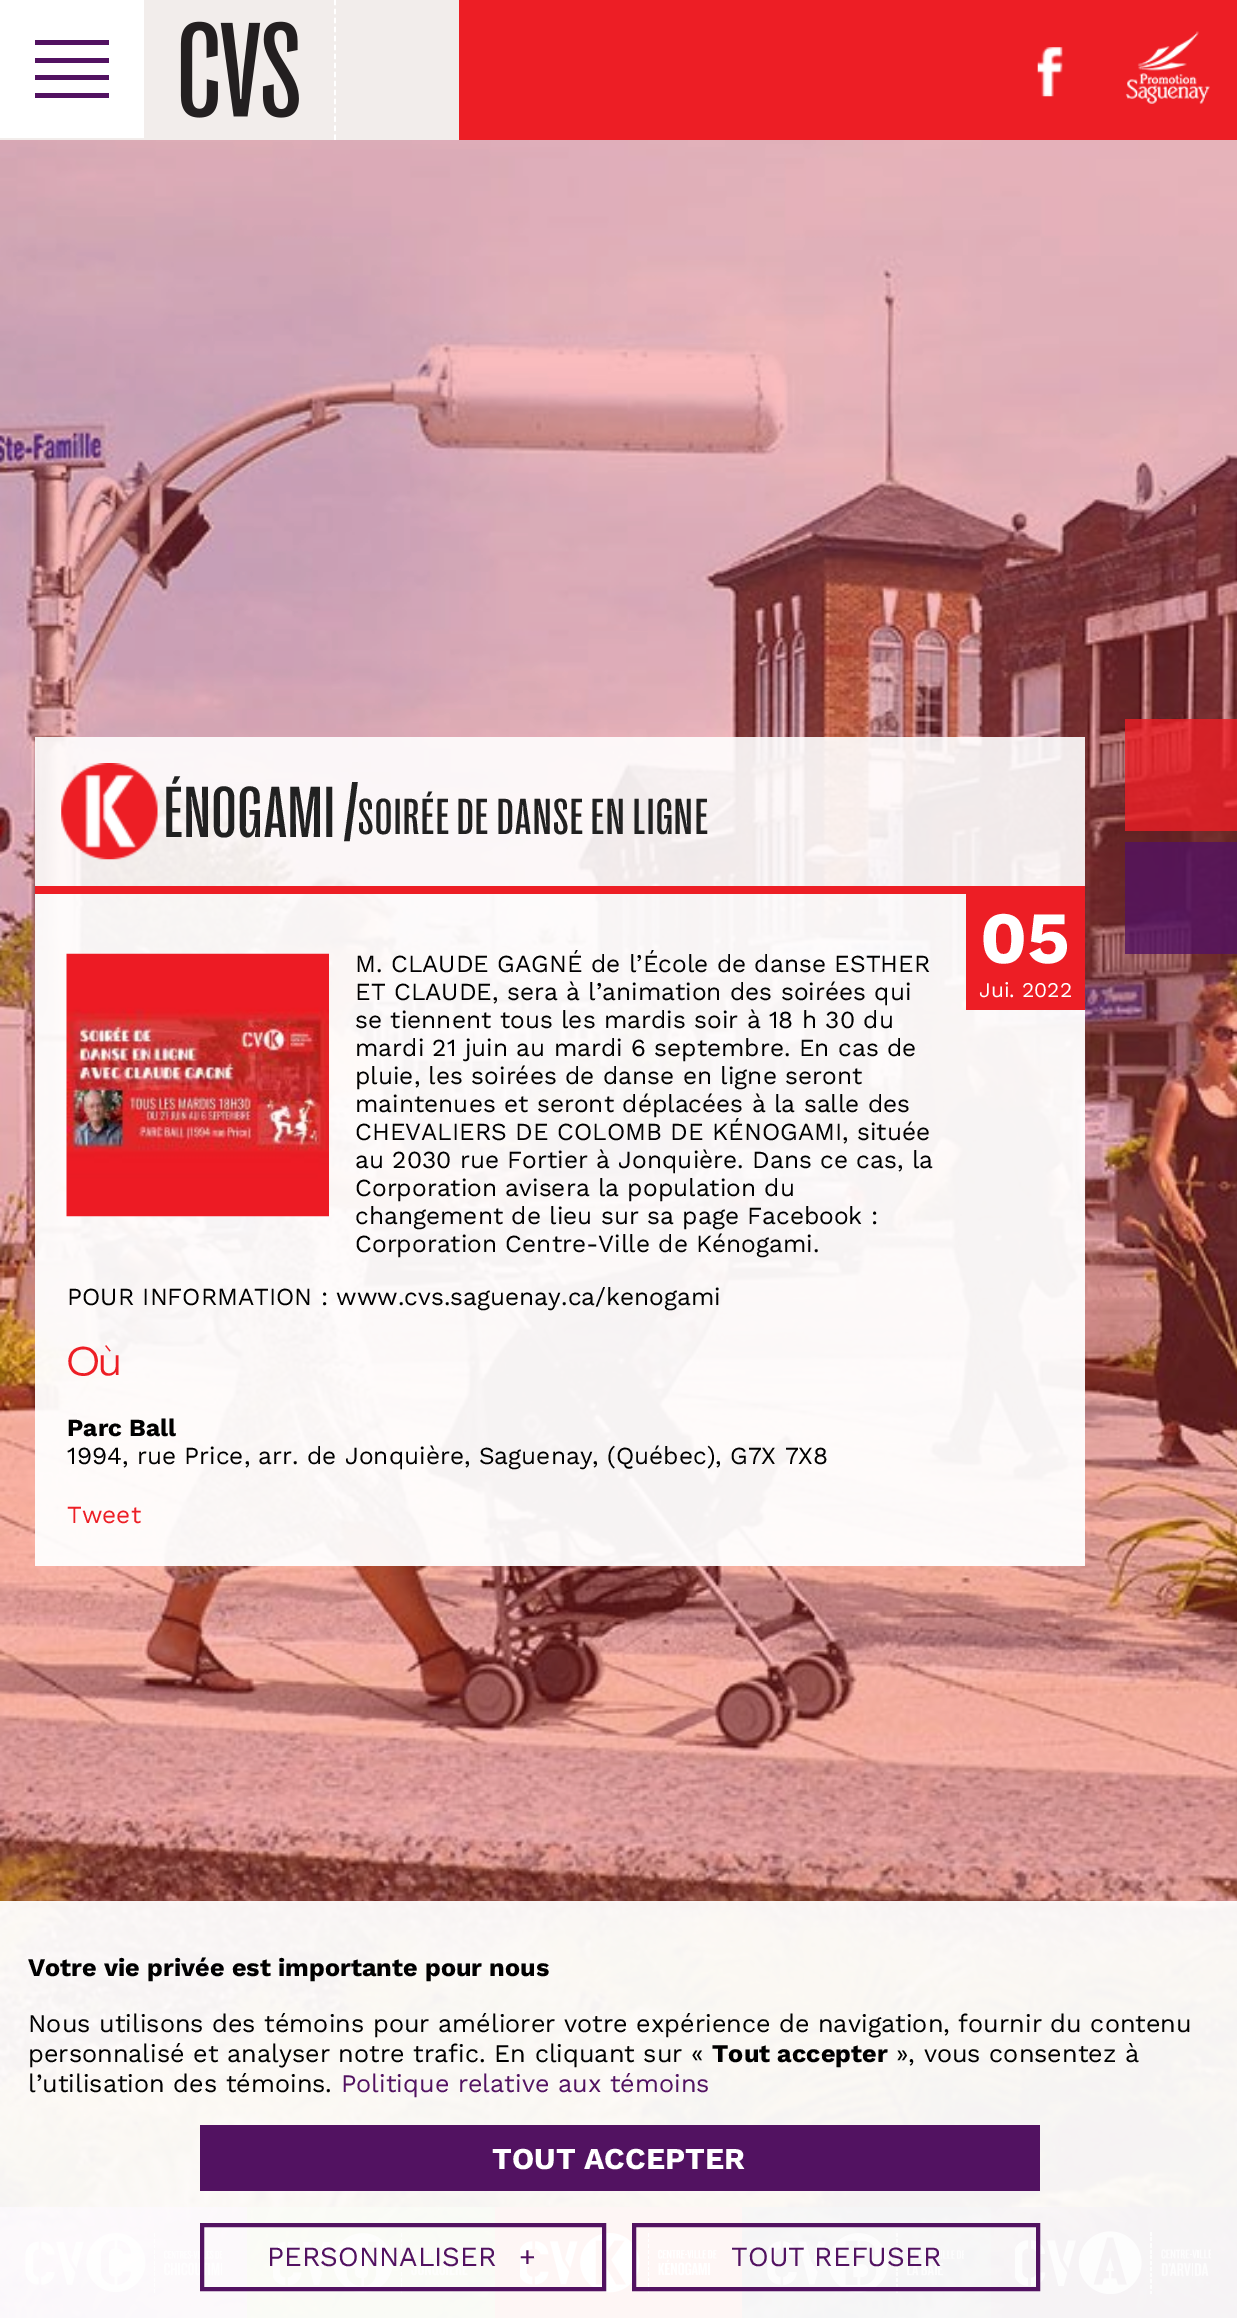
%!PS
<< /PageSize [1237 2318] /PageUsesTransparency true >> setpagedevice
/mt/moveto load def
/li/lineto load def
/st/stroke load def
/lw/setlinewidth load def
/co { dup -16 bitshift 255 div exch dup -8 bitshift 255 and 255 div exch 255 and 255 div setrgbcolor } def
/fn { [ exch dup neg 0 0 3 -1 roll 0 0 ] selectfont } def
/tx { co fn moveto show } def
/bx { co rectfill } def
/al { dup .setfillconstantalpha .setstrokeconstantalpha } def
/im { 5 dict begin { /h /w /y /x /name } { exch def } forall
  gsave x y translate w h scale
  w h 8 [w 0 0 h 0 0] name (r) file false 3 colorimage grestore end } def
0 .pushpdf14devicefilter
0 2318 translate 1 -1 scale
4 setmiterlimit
0 0 1237 2318 16#FFFFFF bx
(media/1.raw) 0 140 1237 2178 im
0 0 459 140 16#F2EDEB bx
0 0 144 138 16#FFFFFF bx
35 40 74 5 16#521261 bx
35 58 74 5 16#521261 bx
35 75 74 5 16#521261 bx
35 93 74 5 16#521261 bx
16#FFFFFF co
1.8 lw
[5.25 3.73] 0 setdash
335 0 mt 335 140 li st
(media/2.raw) 180 21 119 97 im
459 0 778 140 16#ED1E25 bx
(media/3.raw) 1037 47 26 50 im
(media/4.raw) 1125 31 85 73 im
0.9 al
35 737 1050 149 16#FFFFFF bx
1 al
35 886 1050 8 16#ED1E25 bx
(media/5.raw) 61 763 97 97 im
0.95 al
35 894 1050 672 16#FFFFFF bx
1 al
(media/6.raw) 66 953 263 264 im
966 894 119 116 16#ED1E25 bx
0.8 al
1125 719 112 112 16#ED1E25 bx
1125 842 112 112 16#521261 bx
0.64 al
0 2207 247 111 16#D994FF bx
1 al
(media/7.raw) 25 2233 197 60 im
0.64 al
247 2207 248 111 16#A3DE6B bx
1 al
(media/8.raw) 273 2233 196 60 im
495 2207 247 111 16#F55843 bx
(media/9.raw) 520 2233 197 60 im
0.64 al
742 2207 249 111 16#3B4D7A bx
1 al
(media/10.raw) 767 2233 197 60 im
0.64 al
991 2207 246 111 16#521261 bx
1 al
(media/11.raw) 1015 2231 196 63 im
0.95 al
0 1901 1237 417 16#FFFFFF bx
1 al
200 2125 840 66 16#521261 bx
4 lw
[] 0 setdash
202 2225 402 64 rectstroke
634 2225 404 64 rectstroke
/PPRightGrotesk-Medium 73.5 fn
16#212121 co
164 837 mt 1.75 0 (ÉNOGAMI) ashow
(/) 344 834 /PPRightGrotesk-Medium 73.5 16#212121 tx
/PPRightGrotesk-Medium 51.5 fn
358 834 mt 1.75 0 (SOIRÉE DE DANSE EN LIGNE) ashow
(M. CLAUDE GAGNÉ de l’École de danse ESTHER) 355 972 /WorkSans-Regular 24.5 16#000000 tx
(ET CLAUDE, sera à l’animation des soirées qui) 355 1000 /WorkSans-Regular 24.5 16#000000 tx
(se tiennent tous les mardis soir à 18 h 30 du) 355 1028 /WorkSans-Regular 24.5 16#000000 tx
(mardi 21 juin au mardi 6 septembre. En cas de) 355 1056 /WorkSans-Regular 24.5 16#000000 tx
(pluie, les soirées de danse en ligne seront) 355 1084 /WorkSans-Regular 24.5 16#000000 tx
(maintenues et seront déplacées à la salle des) 355 1112 /WorkSans-Regular 24.5 16#000000 tx
(CHEVALIERS DE COLOMB DE KÉNOGAMI, située) 355 1140 /WorkSans-Regular 24.5 16#000000 tx
(au 2030 rue Fortier à Jonquière. Dans ce cas, la) 355 1168 /WorkSans-Regular 24.5 16#000000 tx
(Corporation avisera la population du) 355 1196 /WorkSans-Regular 24.5 16#000000 tx
(changement de lieu sur sa page Facebook :) 355 1224 /WorkSans-Regular 24.5 16#000000 tx
(Corporation Centre-Ville de Kénogami.) 355 1252 /WorkSans-Regular 24.5 16#000000 tx
(POUR INFORMATION : www.cvs.saguenay.ca/kenogami) 67 1305 /WorkSans-Regular 24.5 16#000000 tx
(05) 980 963 /WorkSans-Bold 73.5 16#FFFFFF tx
(Jui. 2022) 979 997 /WorkSans-Regular 21 16#FFFFFF tx
(Où) 67 1375 /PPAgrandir-Regular 39 16#ED1E25 tx
(Parc Ball) 67 1436 /WorkSans-Bold 24.5 16#000000 tx
(1994, rue Price, arr. de Jonquière, Saguenay, \(Québec\), G7X 7X8) 67 1464 /WorkSans-Regular 24.5 16#000000 tx
(Tweet) 67 1523 /WorkSans-Regular 24.5 16#ED1E25 tx
(Votre vie privée est importante pour nous) 28 1976 /WorkSans-Bold 25.2 16#000000 tx
(Nous utilisons des témoins pour améliorer votre expérience de navigation, fournir du contenu) 28 2032 /WorkSans-Regular 25.2 16#000000 tx
(personnalisé et analyser notre trafic. En cliquant sur «) 28 2062 /WorkSans-Regular 25.2 16#000000 tx
(Tout accepter) 712 2062 /WorkSans-Bold 25.2 16#000000 tx
(», vous consentez à) 896 2062 /WorkSans-Regular 25.2 16#000000 tx
(l’utilisation des témoins.) 28 2092 /WorkSans-Regular 25.2 16#000000 tx
(Politique relative aux témoins) 341 2092 /WorkSans-Regular 25.2 16#521261 tx
(TOUT ACCEPTER) 492 2169 /WorkSans-Bold 30.25 16#FFFFFF tx
(PERSONNALISER) 267 2266 /WorkSans-Regular 27.75 16#521261 tx
(+) 519 2266 /WorkSans-Regular 27.75 16#521261 tx
(TOUT REFUSER) 731 2266 /WorkSans-Regular 27.75 16#521261 tx
.poppdf14devicefilter showpage
